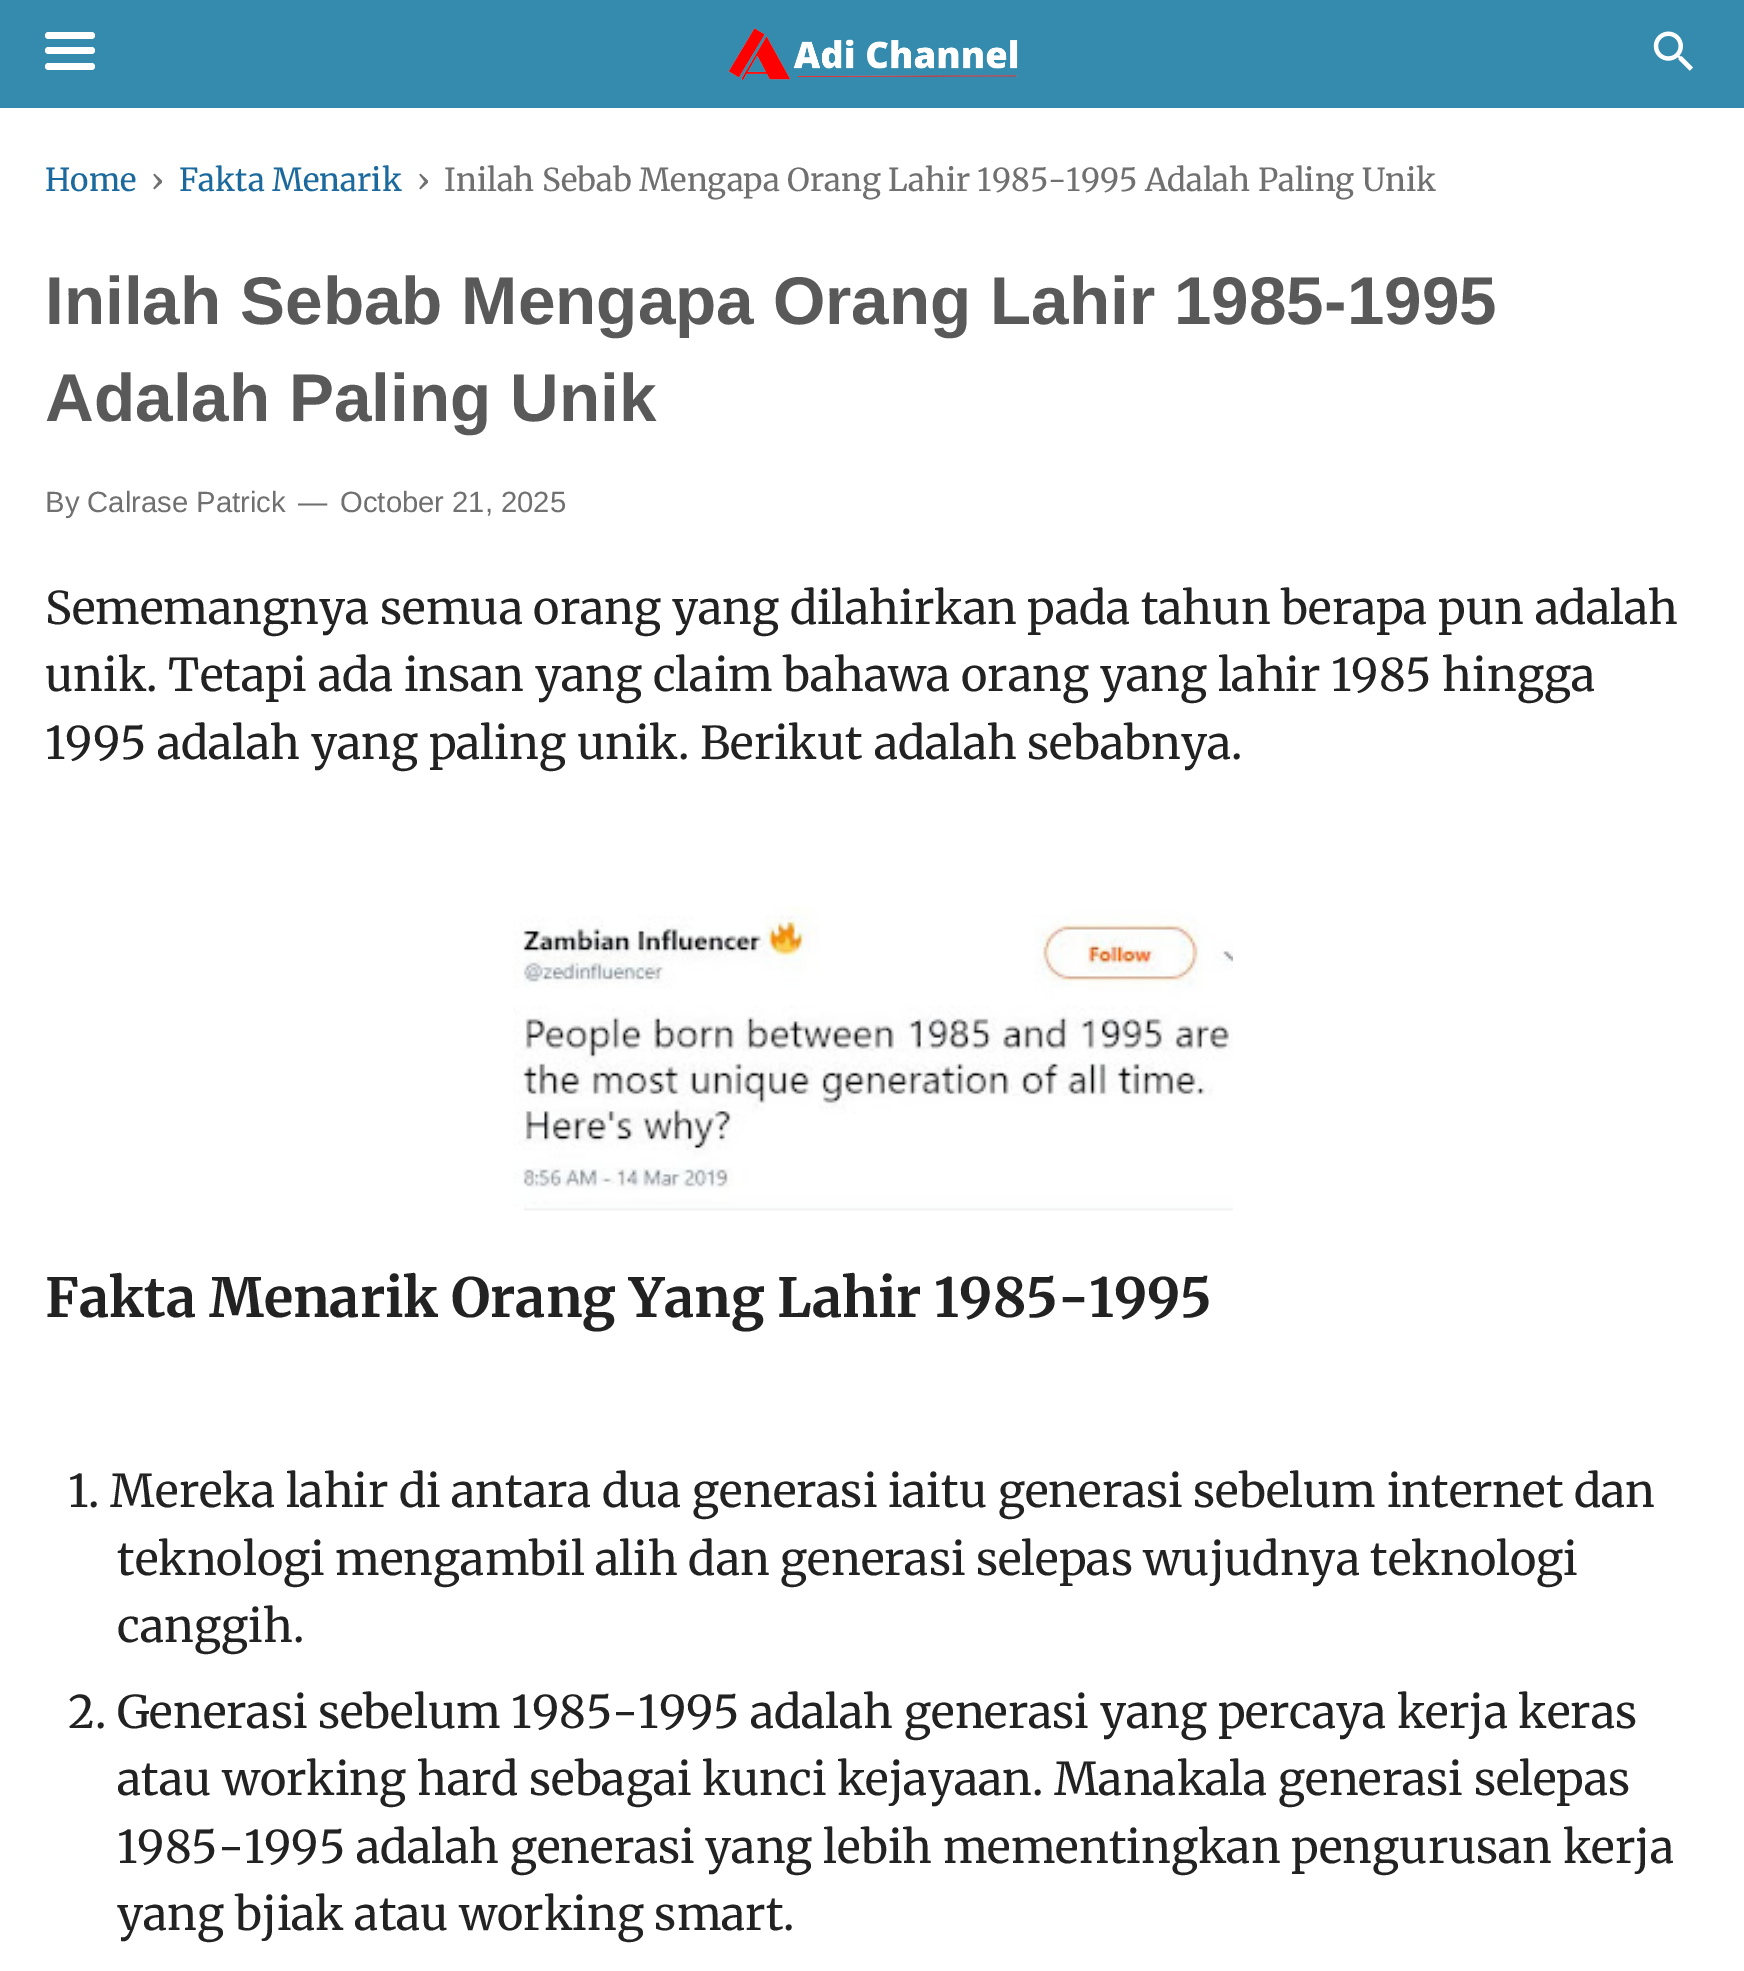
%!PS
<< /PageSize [1744 1971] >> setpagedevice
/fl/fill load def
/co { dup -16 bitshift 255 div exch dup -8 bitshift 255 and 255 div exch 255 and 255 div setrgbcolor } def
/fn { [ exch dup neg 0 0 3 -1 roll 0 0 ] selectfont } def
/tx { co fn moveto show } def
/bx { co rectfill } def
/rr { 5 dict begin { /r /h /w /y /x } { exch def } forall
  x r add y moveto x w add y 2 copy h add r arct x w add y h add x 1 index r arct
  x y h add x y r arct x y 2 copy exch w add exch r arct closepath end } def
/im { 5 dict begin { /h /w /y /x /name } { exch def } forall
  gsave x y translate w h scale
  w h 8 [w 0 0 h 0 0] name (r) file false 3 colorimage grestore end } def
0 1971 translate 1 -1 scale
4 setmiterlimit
0 0 1744 1971 16#348BAD bx
16#FFFFFF co
45 32 50 7 3.5 rr fl
45 47 50 7 3.5 rr fl
45 63 50 7 3.5 rr fl
(media/1.raw) 728 28 290 52 im
(media/2.raw) 1653 31 40 40 im
0 108 1744 1863 16#FFFFFF bx
(media/3.raw) 513 906 720 305 im
(Home) 45 191 /Merriweather-Regular 31.5 16#1B699D tx
(›) 151 191 /Merriweather-Regular 31.5 16#707070 tx
(Fakta Menarik) 179 191 /Merriweather-Regular 31.5 16#1B699D tx
(›) 417 191 /Merriweather-Regular 31.5 16#707070 tx
(Inilah Sebab Mengapa Orang Lahir 1985-1995 Adalah Paling Unik) 444 191 /Merriweather-Regular 31.5 16#707070 tx
(Inilah Sebab Mengapa Orang Lahir 1985-1995) 45 324 /LiberationSans-Bold 67.5 16#595959 tx
(Adalah Paling Unik) 45 421 /LiberationSans-Bold 67.5 16#595959 tx
(By Calrase Patrick) 45 512 /LiberationSans-Regular 29.25 16#707070 tx
(—) 298 512 /LiberationSans-Regular 29.25 16#707070 tx
(October 21, 2025) 340 512 /LiberationSans-Regular 29.25 16#707070 tx
(Sememangnya semua orang yang dilahirkan pada tahun berapa pun adalah) 45 624 /Merriweather-Regular 45 16#222222 tx
(unik. Tetapi ada insan yang claim bahawa orang yang lahir 1985 hingga) 45 691 /Merriweather-Regular 45 16#222222 tx
(1995 adalah yang paling unik. Berikut adalah sebabnya.) 45 759 /Merriweather-Regular 45 16#222222 tx
(Fakta Menarik Orang Yang Lahir 1985-1995) 45 1317 /Merriweather-Bold 54 16#222222 tx
(1. Mereka lahir di antara dua generasi iaitu generasi sebelum internet dan) 68 1507 /Merriweather-Regular 45 16#222222 tx
(teknologi mengambil alih dan generasi selepas wujudnya teknologi) 117 1575 /Merriweather-Regular 45 16#222222 tx
(canggih.) 117 1642 /Merriweather-Regular 45 16#222222 tx
(2. Generasi sebelum 1985-1995 adalah generasi yang percaya kerja keras) 68 1728 /Merriweather-Regular 45 16#222222 tx
(atau working hard sebagai kunci kejayaan. Manakala generasi selepas) 117 1795 /Merriweather-Regular 45 16#222222 tx
(1985-1995 adalah generasi yang lebih mementingkan pengurusan kerja) 117 1863 /Merriweather-Regular 45 16#222222 tx
(yang bjiak atau working smart.) 117 1930 /Merriweather-Regular 45 16#222222 tx
showpage
